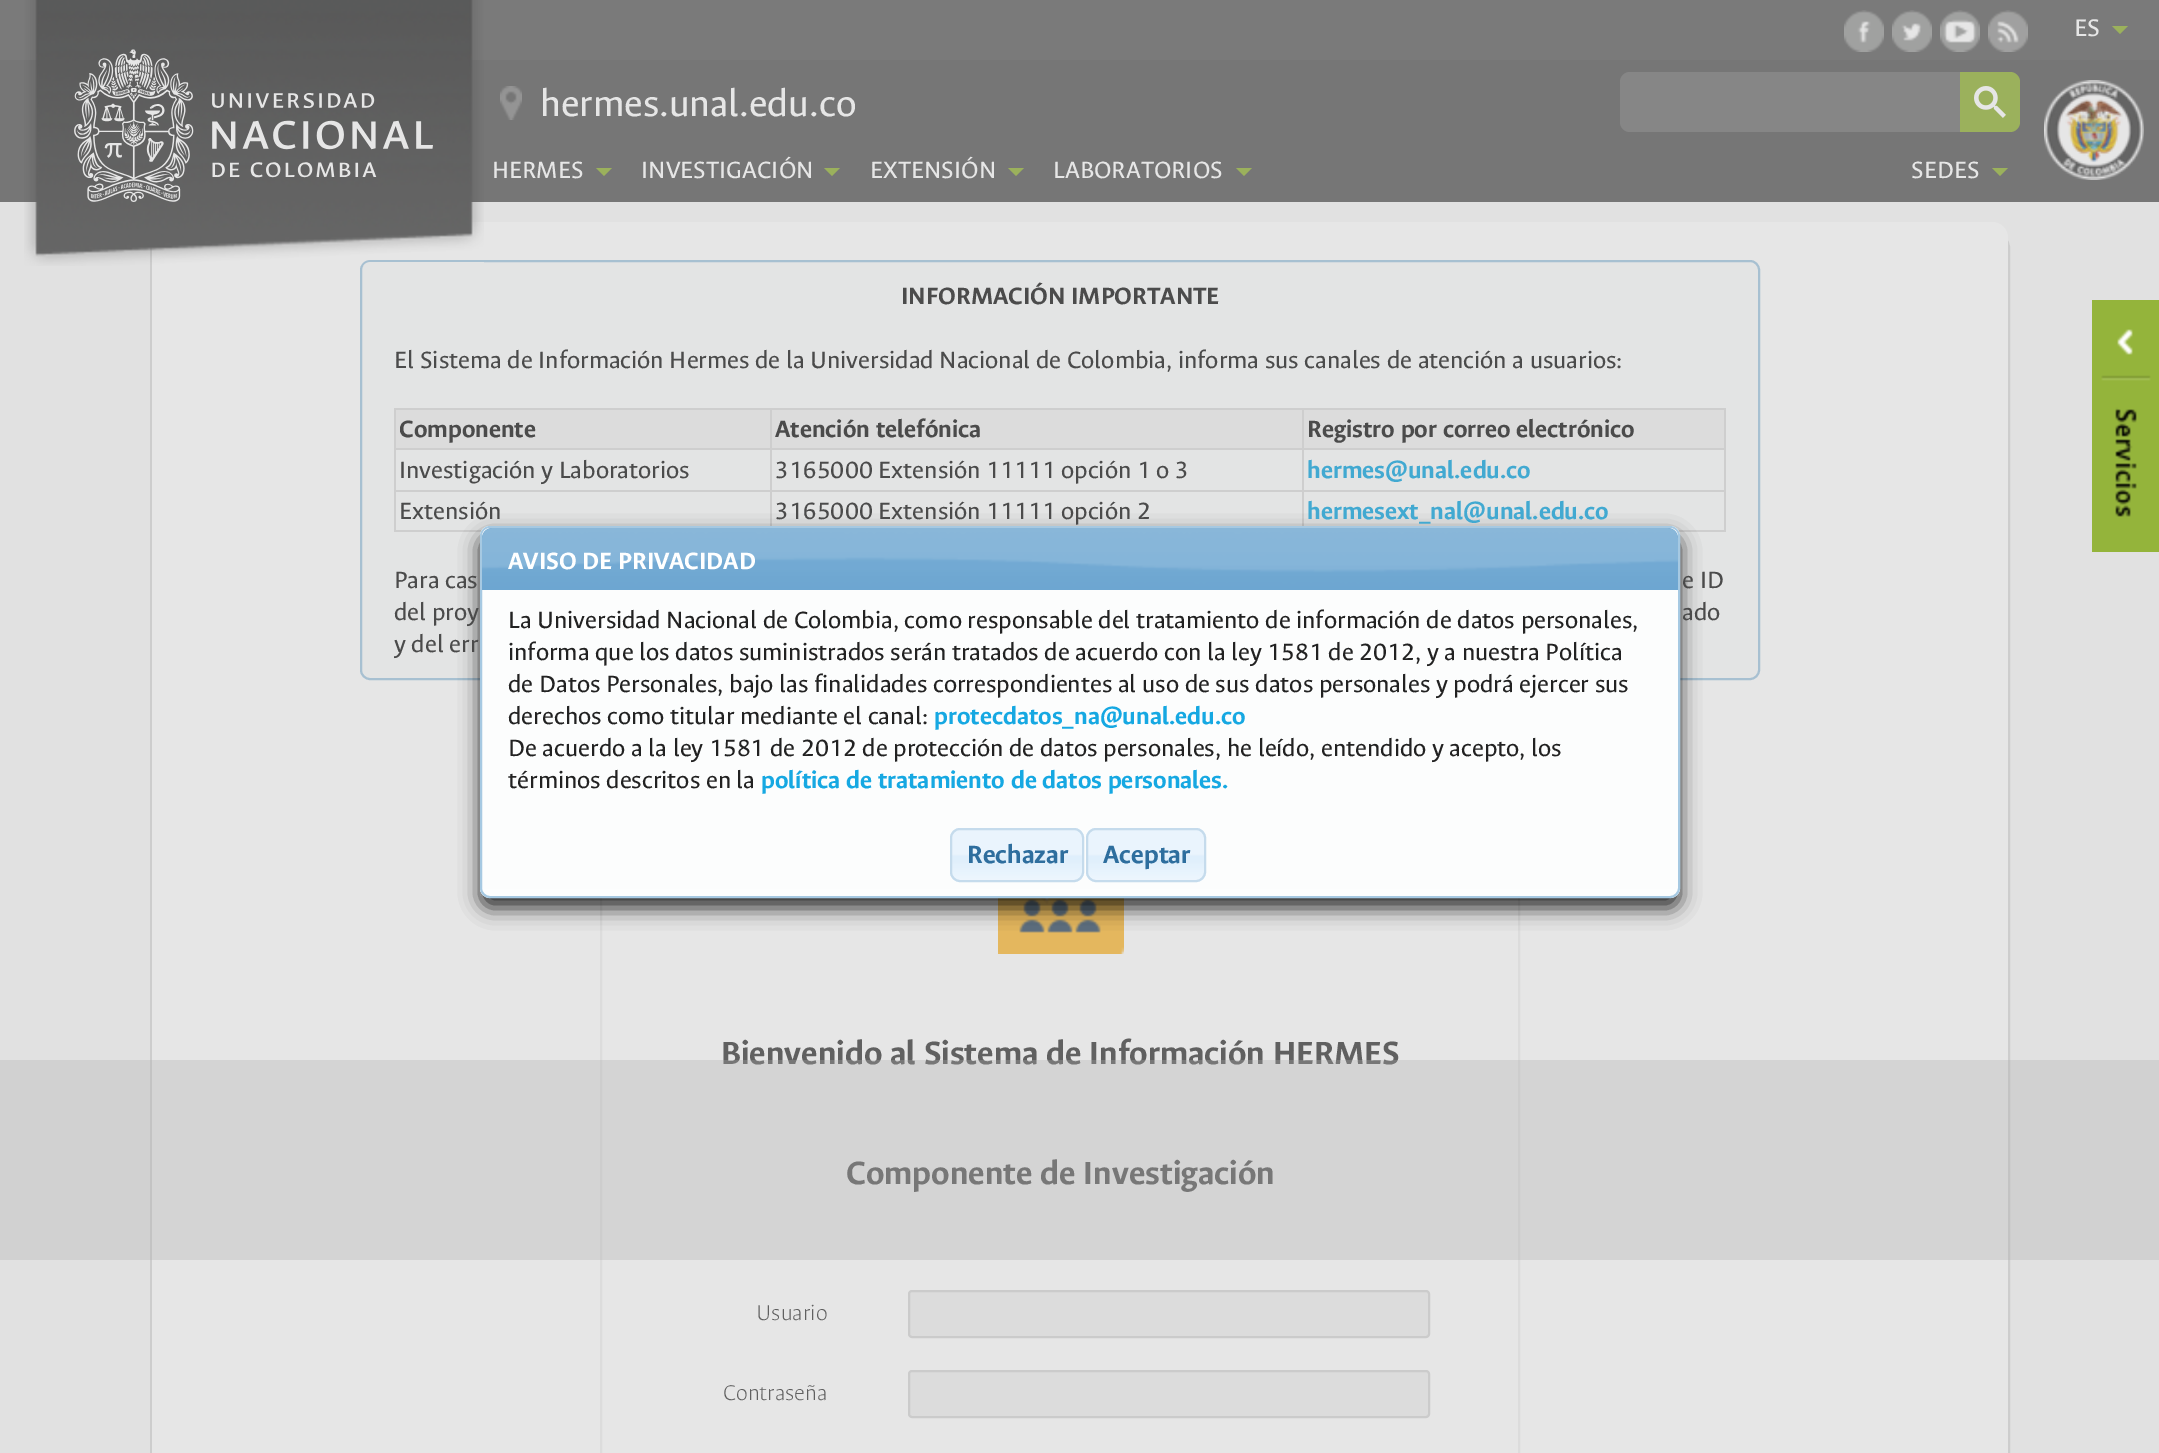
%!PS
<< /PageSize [2159 1453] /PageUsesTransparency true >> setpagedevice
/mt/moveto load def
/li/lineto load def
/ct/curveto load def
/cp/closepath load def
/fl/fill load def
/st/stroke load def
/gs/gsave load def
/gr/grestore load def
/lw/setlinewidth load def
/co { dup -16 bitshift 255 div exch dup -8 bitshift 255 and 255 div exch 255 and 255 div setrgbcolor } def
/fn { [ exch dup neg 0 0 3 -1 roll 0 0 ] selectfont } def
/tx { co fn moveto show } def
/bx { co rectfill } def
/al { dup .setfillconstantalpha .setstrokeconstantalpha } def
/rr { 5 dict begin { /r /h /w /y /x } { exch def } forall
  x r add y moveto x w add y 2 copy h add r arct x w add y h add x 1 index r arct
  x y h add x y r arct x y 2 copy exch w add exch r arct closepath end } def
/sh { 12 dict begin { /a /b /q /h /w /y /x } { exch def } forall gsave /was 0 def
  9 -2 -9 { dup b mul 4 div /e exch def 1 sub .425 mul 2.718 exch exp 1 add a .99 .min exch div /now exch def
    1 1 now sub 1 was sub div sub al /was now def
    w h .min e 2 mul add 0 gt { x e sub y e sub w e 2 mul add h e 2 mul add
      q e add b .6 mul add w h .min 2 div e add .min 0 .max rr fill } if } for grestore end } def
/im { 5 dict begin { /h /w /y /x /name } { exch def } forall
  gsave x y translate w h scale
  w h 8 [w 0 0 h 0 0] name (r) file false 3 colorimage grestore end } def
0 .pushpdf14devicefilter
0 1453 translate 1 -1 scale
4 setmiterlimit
0 0 2159 1453 16#E1E1E1 bx
0 0 2159 60 16#7A7A7A bx
0 60 2159 142 16#767676 bx
16#CDCDCD co
2 lw
151 233 1858 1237 15 rr st
16#E6E6E6 co
152 222 1856 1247 16 rr fl
16#E3E4E4 co
361 261 1398 418 9 rr gs fl gr
16#A7C0D1 co
st
(media/1.raw) 24 0 460 266 im
(media/2.raw) 74 49 359 153 im
(media/3.raw) 1844 10 40 42 im
(media/4.raw) 1892 10 40 42 im
(media/5.raw) 1940 10 40 42 im
(media/6.raw) 1988 10 40 42 im
16#9BB15C co
2112 26 mt 2128 26 li 2120 34 li cp fl
(media/7.raw) 500 86 22 34 im
16#868686 co
1630 72 mt 1960 72 li 1960 132 li 1630 132 li 1624.5 132 1620 127.5 1620 122 ct 1620 82 li 1620 76.5 1624.5 72 1630 72 ct cp fl
16#9BB15C co
1960 72 mt 2010 72 li 2015.5 72 2020 76.5 2020 82 ct 2020 122 li 2020 127.5 2015.5 132 2010 132 ct 1960 132 li cp fl
(media/8.raw) 1974 86 32 32 im
596 168 mt 612 168 li 604 176 li cp fl
824 168 mt 840 168 li 832 176 li cp fl
1008 168 mt 1024 168 li 1016 176 li cp fl
1236 168 mt 1252 168 li 1244 176 li cp fl
1992 168 mt 2008 168 li 2000 176 li cp fl
(media/9.raw) 2044 80 100 100 im
396 410 374 38 16#DCDCDC bx
1302 408 424 2 16#CECECE bx
1302 448 424 2 16#CECECE bx
1302 490 424 2 16#CECECE bx
1302 490 2 42 16#CECECE bx
770 490 534 2 16#CECECE bx
1302 448 2 44 16#CECECE bx
770 448 534 2 16#CECECE bx
1302 408 2 42 16#CECECE bx
770 408 534 2 16#CECECE bx
770 490 2 42 16#CECECE bx
394 490 378 2 16#CECECE bx
770 448 2 44 16#CECECE bx
394 448 378 2 16#CECECE bx
770 408 2 42 16#CECECE bx
394 408 378 2 16#CECECE bx
394 530 88 2 16#CECECE bx
394 490 2 42 16#CECECE bx
394 448 2 44 16#CECECE bx
394 408 2 42 16#CECECE bx
772 410 530 38 16#DCDCDC bx
1304 410 420 38 16#DCDCDC bx
1724 490 2 42 16#CECECE bx
1724 448 2 44 16#CECECE bx
1724 408 2 42 16#CECECE bx
1678 530 48 2 16#CECECE bx
16#DCDCDC co
601 721 918 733 rectstroke
(media/10.raw) 998 898 126 56 im
909 1291 520 46 3 rr gs fl gr
16#CBCBCB co
st
16#DCDCDC co
909 1371 520 46 3 rr gs fl gr
16#CBCBCB co
st
16#000000 co
480 536 1200 372 10 10 .8 sh
16#FCFDFD co
480 526 1200 372 10 rr fl
(media/11.raw) 480 889 1200 7 im
16#A6C9E2 co
481 527 1198 370 9 rr st
16#5C9CCC co
492 528 mt 1668 528 li 1673.5 528 1678 532.5 1678 538 ct 1678 590 li 482 590 li 482 538 li 482 532.5 486.5 528 492 528 ct cp fl
(media/12.raw) 482 528 1196 62 im
(media/13.raw) 950 828 134 54 im
16#C5DBEC co
951 829 132 52 9 rr st
(media/14.raw) 1086 828 120 54 im
1087 829 118 52 9 rr st
2092 300 67 252 16#94B43B bx
(media/15.raw) 2101 329 50 188 im
(ES) 2074 36 /AncizarSans-Regular 27 16#E6E6E6 tx
(hermes.unal.edu.co) 540 116 /AncizarSans-Regular 41.25 16#E6E6E6 tx
(HERMES) 492 178 /AncizarSans-Regular 26.4 16#E6E6E6 tx
(INVESTIGACIÓN) 641 178 /AncizarSans-Regular 26.4 16#E6E6E6 tx
(EXTENSIÓN) 870 178 /AncizarSans-Regular 26.4 16#E6E6E6 tx
(LABORATORIOS) 1053 178 /AncizarSans-Regular 26.4 16#E6E6E6 tx
(SEDES) 1911 178 /AncizarSans-Regular 26.4 16#E6E6E6 tx
(INFORMACIÓN IMPORTANTE) 901 304 /AncizarSans-Bold 26.4 16#4B4B4B tx
(El Sistema de Información Hermes de la Universidad Nacional de Colombia, informa sus canales de atención a usuarios:) 394 368 /AncizarSans-Regular 26.4 16#4B4B4B tx
(Componente) 399 437 /AncizarSans-Bold 26.4 16#4B4B4B tx
(Atención telefónica) 775 437 /AncizarSans-Bold 26.4 16#4B4B4B tx
(Registro por correo electrónico) 1307 437 /AncizarSans-Bold 26.4 16#4B4B4B tx
(Investigación y Laboratorios) 399 478 /AncizarSans-Regular 26.4 16#4B4B4B tx
(3165000 Extensión 11111 opción 1 o 3) 775 478 /AncizarSans-Regular 26.4 16#4B4B4B tx
(hermes@unal.edu.co) 1307 478 /AncizarSans-Bold 26.4 16#42A9D1 tx
(Extensión) 399 519 /AncizarSans-Regular 26.4 16#4B4B4B tx
(3165000 Extensión 11111 opción 2) 775 519 /AncizarSans-Regular 26.4 16#4B4B4B tx
(hermesext_nal@unal.edu.co) 1307 519 /AncizarSans-Bold 26.4 16#42A9D1 tx
(Para cas) 394 588 /AncizarSans-Regular 26.4 16#4B4B4B tx
(e ID) 1682 588 /AncizarSans-Regular 26.4 16#4B4B4B tx
(del proy) 394 620 /AncizarSans-Regular 26.4 16#4B4B4B tx
(ado) 1682 620 /AncizarSans-Regular 26.4 16#4B4B4B tx
(y del err) 394 652 /AncizarSans-Regular 26.4 16#4B4B4B tx
(Bienvenido al Sistema de Información HERMES) 721 1064 /AncizarSans-Bold 36 16#606060 tx
(Componente de Investigación) 846 1184 /AncizarSans-Bold 36 16#606060 tx
(Usuario) 756 1320 /AncizarSans-Thin 24 16#606060 tx
(Contraseña) 723 1400 /AncizarSans-Thin 24 16#606060 tx
(AVISO DE PRIVACIDAD) 508 569 /AncizarSans-Bold 26.4 16#FFFFFF tx
(La Universidad Nacional de Colombia, como responsable del tratamiento de información de datos personales,) 508 628 /AncizarSans-Regular 26.4 16#222222 tx
(informa que los datos suministrados serán tratados de acuerdo con la ley 1581 de 2012, y a nuestra Política) 508 660 /AncizarSans-Regular 26.4 16#222222 tx
(de Datos Personales, bajo las finalidades correspondientes al uso de sus datos personales y podrá ejercer sus) 508 692 /AncizarSans-Regular 26.4 16#222222 tx
(derechos como titular mediante el canal:) 508 724 /AncizarSans-Regular 26.4 16#222222 tx
(protecdatos_na@unal.edu.co) 934 724 /AncizarSans-Bold 26.4 16#16A8E2 tx
(De acuerdo a la ley 1581 de 2012 de protección de datos personales, he leído, entendido y acepto, los) 508 756 /AncizarSans-Regular 26.4 16#222222 tx
(términos descritos en la) 508 788 /AncizarSans-Regular 26.4 16#222222 tx
(política de tratamiento de datos personales.) 761 788 /AncizarSans-Bold 26.4 16#16A8E2 tx
(Rechazar) 967 863 /AncizarSans-Bold 28 16#2E6E9E tx
(Aceptar) 1103 863 /AncizarSans-Bold 28 16#2E6E9E tx
0.3 al
0 1060 2159 200 16#ABABAB bx
.poppdf14devicefilter showpage
